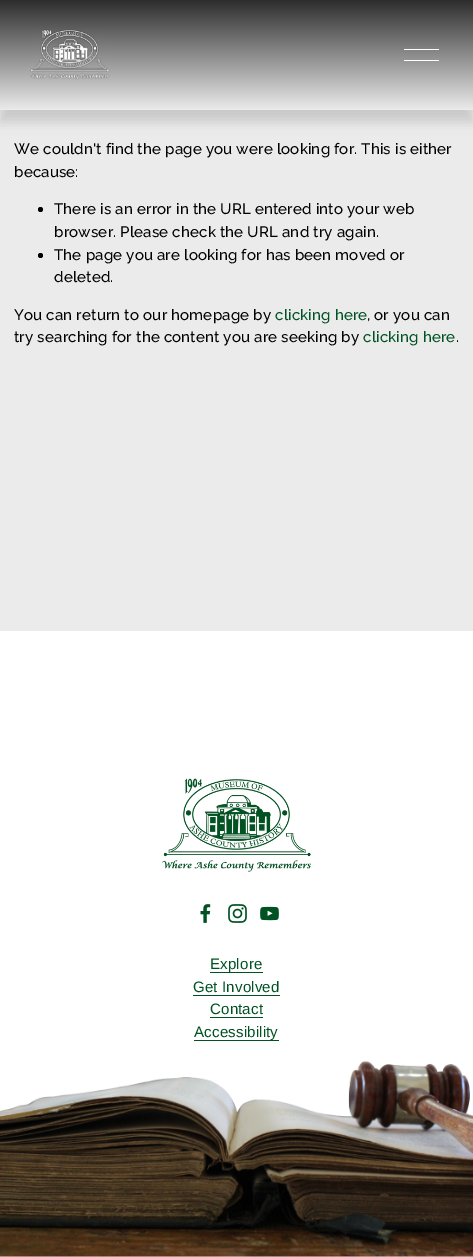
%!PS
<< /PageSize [473 1257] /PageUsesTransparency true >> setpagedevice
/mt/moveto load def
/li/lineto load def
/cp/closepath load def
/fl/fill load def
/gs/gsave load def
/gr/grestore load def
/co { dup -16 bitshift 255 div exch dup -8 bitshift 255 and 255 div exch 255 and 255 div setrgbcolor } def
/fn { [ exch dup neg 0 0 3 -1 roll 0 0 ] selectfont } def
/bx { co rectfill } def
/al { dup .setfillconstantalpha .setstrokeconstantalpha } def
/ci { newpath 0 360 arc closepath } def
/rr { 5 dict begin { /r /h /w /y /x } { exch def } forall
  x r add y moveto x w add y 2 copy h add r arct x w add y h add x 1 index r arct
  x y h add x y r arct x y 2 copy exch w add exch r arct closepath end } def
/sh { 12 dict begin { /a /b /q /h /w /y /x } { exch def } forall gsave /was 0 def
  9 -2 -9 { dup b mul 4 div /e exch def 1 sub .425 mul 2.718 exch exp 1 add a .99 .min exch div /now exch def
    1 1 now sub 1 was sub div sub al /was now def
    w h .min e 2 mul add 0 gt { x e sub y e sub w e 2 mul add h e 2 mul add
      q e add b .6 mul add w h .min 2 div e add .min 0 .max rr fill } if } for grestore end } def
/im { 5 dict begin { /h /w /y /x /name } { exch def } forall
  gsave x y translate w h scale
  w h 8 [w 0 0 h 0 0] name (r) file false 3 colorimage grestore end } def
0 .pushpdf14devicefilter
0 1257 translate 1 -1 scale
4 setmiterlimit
0 0 473 1257 16#EBEBEB bx
16#C8C8C8 co
0 12 473 110 0 6 1 sh
gs 0 0 mt 473 0 li 473 110 li 0 110 li cp clip newpath
<< /ShadingType 2 /ColorSpace /DeviceRGB /Coords [237 0 237 110] /Extend [true true] /Function << /FunctionType 2 /Domain [0 1] /C0 [.176 .176 .176] /C1 [.922 .922 .922] /N 1 >> >> shfill gr
(media/1.raw) 30 29 80 51 im
404 49 35 1 16#FFFFFF bx
404 60 35 1 16#FFFFFF bx
16#000000 co
40.5 209.5 2.5 ci fl
40.5 255.5 2.5 ci fl
0 631 473 626 16#FFFFFF bx
(media/2.raw) 162 778 149 94 im
(media/3.raw) 200 904 11 19 im
(media/4.raw) 228 904 19 19 im
(media/5.raw) 260 906 19 15 im
210 972 53 1 16#005222 bx
193 995 87 1 16#005222 bx
210 1017 53 1 16#005222 bx
194 1040 85 1 16#005222 bx
(media/6.raw) 0 1060 473 197 im
/Raleway-Medium 15.1 fn
16#000000 co
14 154 mt .15 0 (We couldn't find the page you were looking for. This is either) ashow
14 177 mt .15 0 (because:) ashow
54 214 mt .15 0 (There is an error in the URL entered into your web) ashow
54 237 mt .15 0 (browser. Please check the URL and try again.) ashow
54 260 mt .15 0 (The page you are looking for has been moved or) ashow
54 282 mt .15 0 (deleted.) ashow
14 320 mt .15 0 (You can return to our homepage by) ashow
16#005222 co
275 320 mt .15 0 (clicking here) ashow
16#000000 co
367 320 mt .15 0 (, or you can) ashow
14 342 mt .15 0 (try searching for the content you are seeking by) ashow
16#005222 co
363 342 mt .15 0 (clicking here) ashow
16#000000 co
456 342 mt .15 0 (.) ashow
/LiberationSans-Regular 15.1 fn
16#005222 co
210 969 mt .15 0 (Explore) ashow
193 992 mt .15 0 (Get Involved) ashow
210 1014 mt .15 0 (Contact) ashow
194 1037 mt .15 0 (Accessibility) ashow
.poppdf14devicefilter showpage
